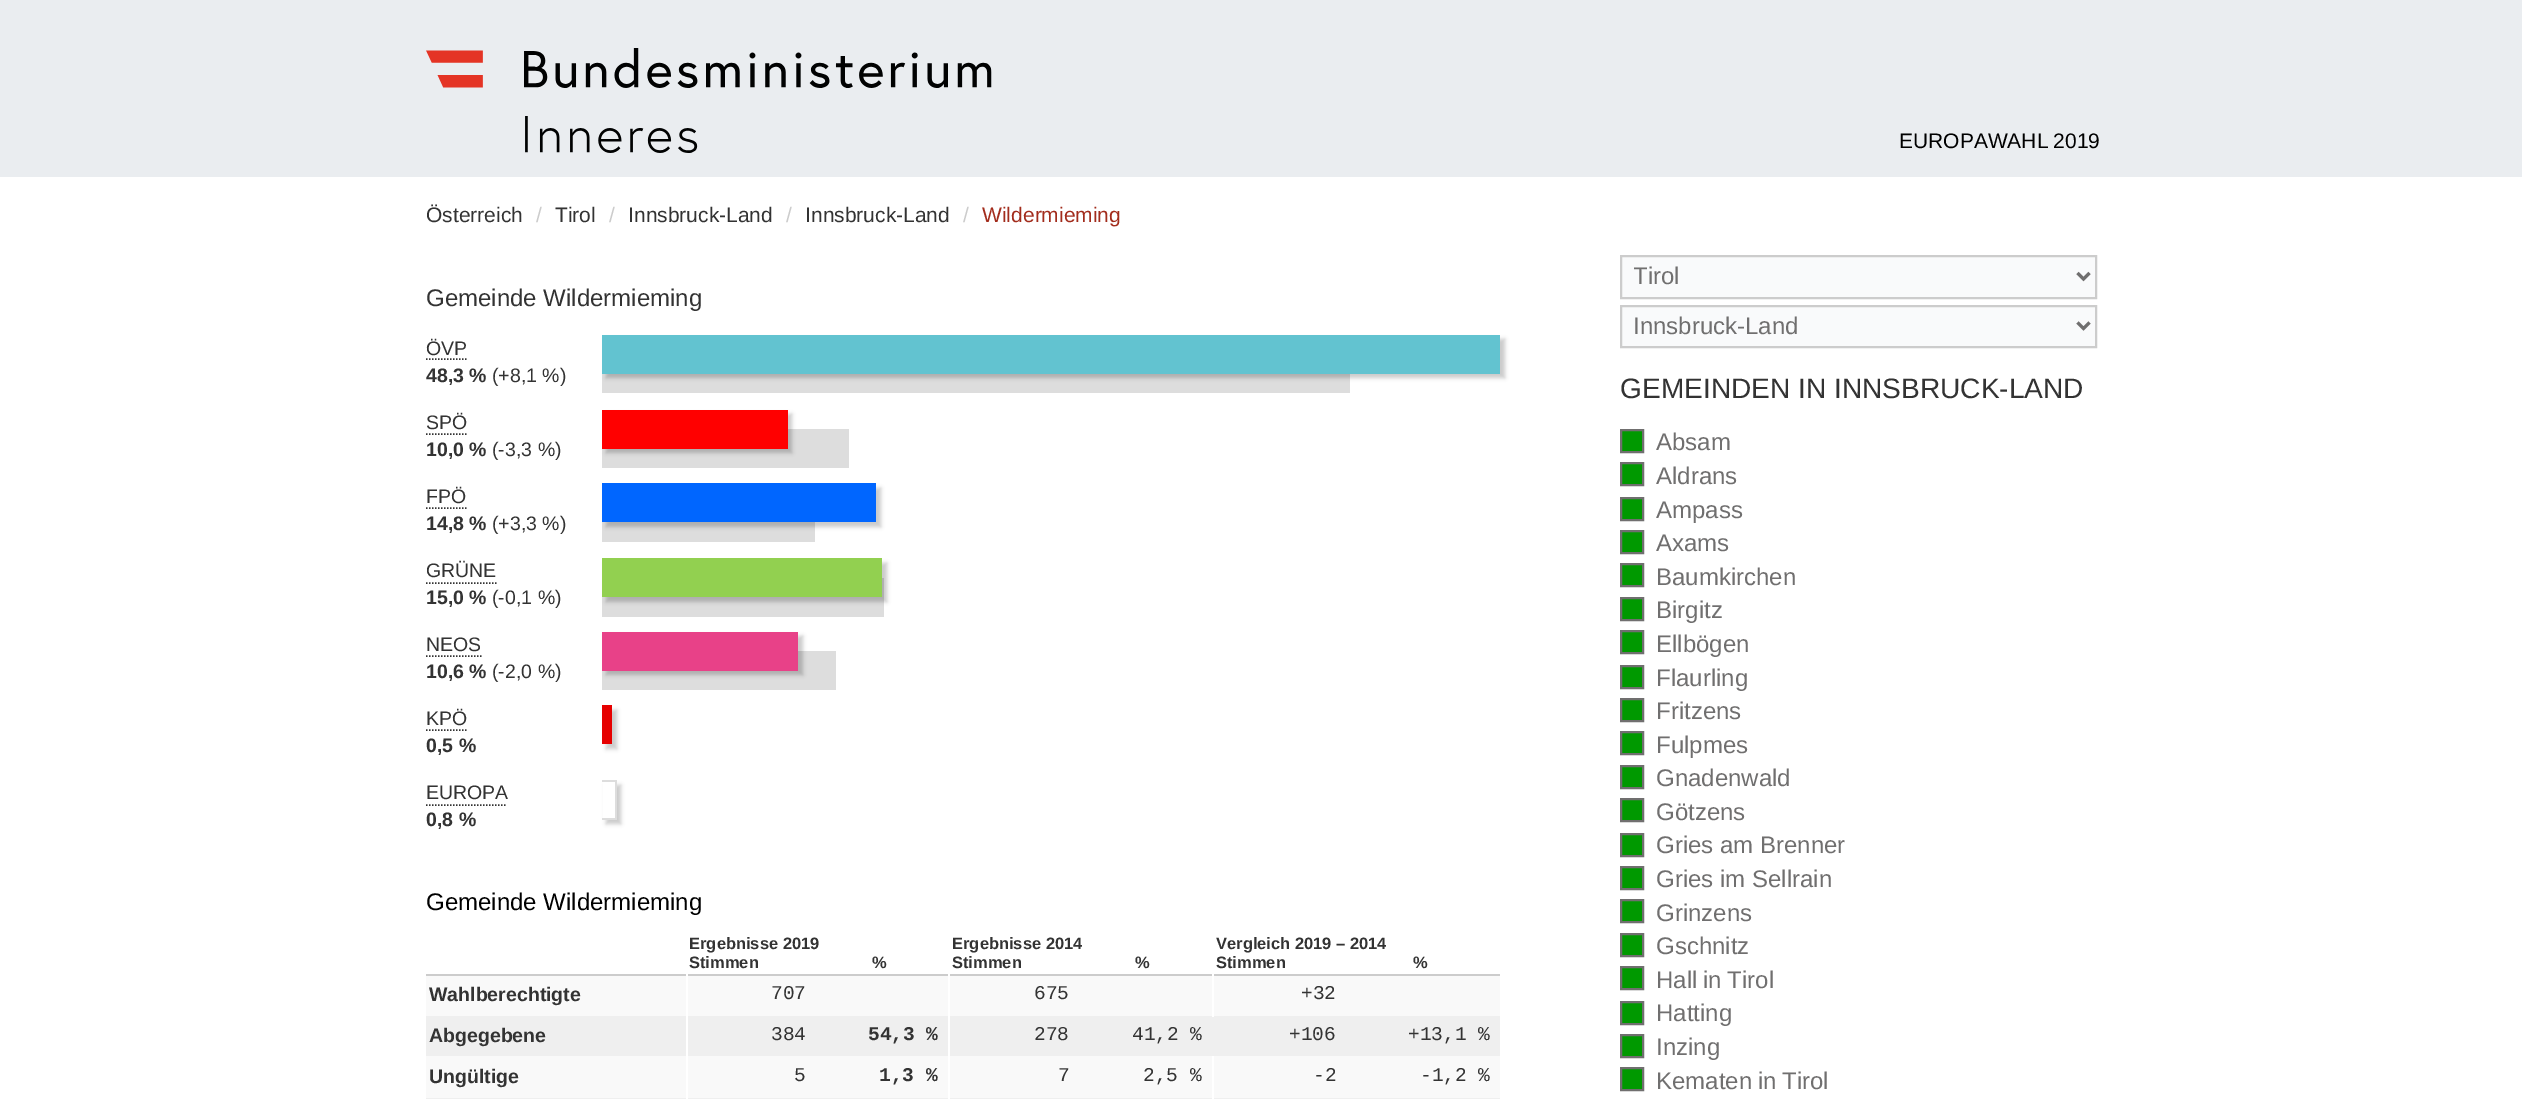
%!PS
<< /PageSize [2522 1099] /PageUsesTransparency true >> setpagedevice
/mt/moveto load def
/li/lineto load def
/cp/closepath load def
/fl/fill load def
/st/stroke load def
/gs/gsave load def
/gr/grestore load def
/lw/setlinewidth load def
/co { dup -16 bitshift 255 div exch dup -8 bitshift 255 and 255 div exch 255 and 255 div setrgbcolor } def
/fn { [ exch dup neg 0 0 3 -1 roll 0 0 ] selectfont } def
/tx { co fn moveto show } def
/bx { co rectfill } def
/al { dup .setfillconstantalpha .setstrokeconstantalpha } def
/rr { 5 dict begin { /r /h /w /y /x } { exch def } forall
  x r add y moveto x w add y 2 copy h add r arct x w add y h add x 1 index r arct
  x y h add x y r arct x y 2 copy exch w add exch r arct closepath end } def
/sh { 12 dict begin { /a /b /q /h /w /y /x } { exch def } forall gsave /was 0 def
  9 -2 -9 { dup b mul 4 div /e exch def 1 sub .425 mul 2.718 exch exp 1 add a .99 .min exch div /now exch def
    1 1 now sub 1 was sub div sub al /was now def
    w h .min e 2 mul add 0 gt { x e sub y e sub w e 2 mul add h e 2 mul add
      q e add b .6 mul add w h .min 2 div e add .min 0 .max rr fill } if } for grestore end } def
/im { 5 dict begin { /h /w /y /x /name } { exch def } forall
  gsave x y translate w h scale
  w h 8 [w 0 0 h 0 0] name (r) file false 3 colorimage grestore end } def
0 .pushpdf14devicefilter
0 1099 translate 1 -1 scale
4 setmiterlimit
0 0 2522 1099 16#FFFFFF bx
0 0 2522 177 16#EAEDF0 bx
(media/1.raw) 426 48 566 105 im
16#333333 co
1.5 lw
[1.5 1.5] 0 setdash
426 359 mt 466.5 359 li st
602 374 748 19 16#DDDDDD bx
16#000000 co
606 339 899 39 0 2 .2 sh
602 335 898 39 16#62C3D0 bx
16#333333 co
426 434 mt 466.5 434 li st
602 429 247 39 16#DDDDDD bx
16#000000 co
606 414 186 39 0 2 .2 sh
602 410 186 39 16#FF0000 bx
16#333333 co
426 508 mt 466.5 508 li st
602 522 213 20 16#DDDDDD bx
16#000000 co
606 488 275 39 0 2 .2 sh
602 483 274 39 16#0066FF bx
16#333333 co
426 583 mt 496.5 583 li st
602 578 282 39 16#DDDDDD bx
16#000000 co
606 563 281 39 0 2 .2 sh
602 558 280 39 16#92D050 bx
16#333333 co
426 656 mt 481.5 656 li st
602 651 234 39 16#DDDDDD bx
16#000000 co
606 636 197 39 0 2 .2 sh
602 632 196 39 16#E84188 bx
16#333333 co
426 730 mt 466.5 730 li st
16#000000 co
606 710 11 39 0 2 .2 sh
602 705 10 39 16#E60000 bx
16#333333 co
426 805 mt 507 805 li st
16#000000 co
606 785 15 39 0 2 .2 sh
602 780 15 2 16#DDDDDD bx
615 780 2 39 16#DDDDDD bx
602 818 15 2 16#DDDDDD bx
603 782 12 36 16#FFFFFF bx
426 974 1074 2 16#CCCCCC bx
426 1098 1074 1 16#EFEFEF bx
426 976 1074 40 16#F9F9F9 bx
426 1016 1074 40 16#EFEFEF bx
426 1056 1074 42 16#F9F9F9 bx
686 974 2 125 16#FFFFFF bx
948 974 2 125 16#FFFFFF bx
1212 1056 2 43 16#FFFFFF bx
1212 974 2 43 16#FFFFFF bx
16#F9FAFB co
1621 256 mt 2096 256 li 2096 298 li 1621 298 li cp gs fl gr
16#CCCCCC co
2 lw
[] 0 setdash
st
16#706F6F co
3 lw
2077.5 273 mt 2083.5 279 li 2089.5 273 li st
16#F9FAFB co
1621 306 mt 2096 306 li 2096 347 li 1621 347 li cp gs fl gr
16#CCCCCC co
2 lw
st
16#706F6F co
3 lw
2077.5 322.5 mt 2083.5 328.5 li 2089.5 322.5 li st
16#009900 co
1621 430 mt 1643 430 li 1643 452 li 1621 452 li cp gs fl gr
16#706F6F co
2 lw
st
16#009900 co
1621 463 mt 1643 463 li 1643 485 li 1621 485 li cp gs fl gr
16#706F6F co
st
16#009900 co
1621 498 mt 1643 498 li 1643 520 li 1621 520 li cp gs fl gr
16#706F6F co
st
16#009900 co
1621 531 mt 1643 531 li 1643 553 li 1621 553 li cp gs fl gr
16#706F6F co
st
16#009900 co
1621 564 mt 1643 564 li 1643 586 li 1621 586 li cp gs fl gr
16#706F6F co
st
16#009900 co
1621 598 mt 1643 598 li 1643 620 li 1621 620 li cp gs fl gr
16#706F6F co
st
16#009900 co
1621 631 mt 1643 631 li 1643 653 li 1621 653 li cp gs fl gr
16#706F6F co
st
16#009900 co
1621 666 mt 1643 666 li 1643 688 li 1621 688 li cp gs fl gr
16#706F6F co
st
16#009900 co
1621 699 mt 1643 699 li 1643 721 li 1621 721 li cp gs fl gr
16#706F6F co
st
16#009900 co
1621 732 mt 1643 732 li 1643 754 li 1621 754 li cp gs fl gr
16#706F6F co
st
16#009900 co
1621 766 mt 1643 766 li 1643 788 li 1621 788 li cp gs fl gr
16#706F6F co
st
16#009900 co
1621 799 mt 1643 799 li 1643 821 li 1621 821 li cp gs fl gr
16#706F6F co
st
16#009900 co
1621 834 mt 1643 834 li 1643 856 li 1621 856 li cp gs fl gr
16#706F6F co
st
16#009900 co
1621 867 mt 1643 867 li 1643 889 li 1621 889 li cp gs fl gr
16#706F6F co
st
16#009900 co
1621 900 mt 1643 900 li 1643 922 li 1621 922 li cp gs fl gr
16#706F6F co
st
16#009900 co
1621 934 mt 1643 934 li 1643 956 li 1621 956 li cp gs fl gr
16#706F6F co
st
16#009900 co
1621 967 mt 1643 967 li 1643 989 li 1621 989 li cp gs fl gr
16#706F6F co
st
16#009900 co
1621 1002 mt 1643 1002 li 1643 1024 li 1621 1024 li cp gs fl gr
16#706F6F co
st
16#009900 co
1621 1035 mt 1643 1035 li 1643 1057 li 1621 1057 li cp gs fl gr
16#706F6F co
st
16#009900 co
1621 1068 mt 1643 1068 li 1643 1090 li 1621 1090 li cp gs fl gr
16#706F6F co
st
/LiberationSans-Regular 21 fn
16#000000 co
1899 148 mt -1 0 32 (EUROPAWAHL 2019) widthshow
(Österreich) 426 222 /LiberationSans-Regular 21 16#333333 tx
(/) 536 222 /LiberationSans-Regular 21 16#CCCCCC tx
(Tirol) 555 222 /LiberationSans-Regular 21 16#333333 tx
(/) 609 222 /LiberationSans-Regular 21 16#CCCCCC tx
(Innsbruck-Land) 628 222 /LiberationSans-Regular 21 16#333333 tx
(/) 786 222 /LiberationSans-Regular 21 16#CCCCCC tx
(Innsbruck-Land) 805 222 /LiberationSans-Regular 21 16#333333 tx
(/) 963 222 /LiberationSans-Regular 21 16#CCCCCC tx
(Wildermieming) 982 222 /LiberationSans-Regular 21 16#A22C1C tx
(Gemeinde Wildermieming) 426 306 /LiberationSans-Regular 24 16#333333 tx
(ÖVP) 426 355 /LiberationSans-Regular 19.5 16#333333 tx
(48,3 %) 426 382 /LiberationSans-Bold 19.5 16#333333 tx
(\(+8,1 %\)) 492 382 /LiberationSans-Regular 19.5 16#333333 tx
(SPÖ) 426 429 /LiberationSans-Regular 19.5 16#333333 tx
(10,0 %) 426 456 /LiberationSans-Bold 19.5 16#333333 tx
(\(-3,3 %\)) 492 456 /LiberationSans-Regular 19.5 16#333333 tx
(FPÖ) 426 503 /LiberationSans-Regular 19.5 16#333333 tx
(14,8 %) 426 530 /LiberationSans-Bold 19.5 16#333333 tx
(\(+3,3 %\)) 492 530 /LiberationSans-Regular 19.5 16#333333 tx
(GRÜNE) 426 577 /LiberationSans-Regular 19.5 16#333333 tx
(15,0 %) 426 604 /LiberationSans-Bold 19.5 16#333333 tx
(\(-0,1 %\)) 492 604 /LiberationSans-Regular 19.5 16#333333 tx
(NEOS) 426 651 /LiberationSans-Regular 19.5 16#333333 tx
(10,6 %) 426 678 /LiberationSans-Bold 19.5 16#333333 tx
(\(-2,0 %\)) 492 678 /LiberationSans-Regular 19.5 16#333333 tx
(KPÖ) 426 725 /LiberationSans-Regular 19.5 16#333333 tx
(0,5 %) 426 752 /LiberationSans-Bold 19.5 16#333333 tx
(EUROPA) 426 799 /LiberationSans-Regular 19.5 16#333333 tx
(0,8 %) 426 826 /LiberationSans-Bold 19.5 16#333333 tx
(Gemeinde Wildermieming) 426 910 /LiberationSans-Regular 24 16#000000 tx
(Ergebnisse 2019) 689 949 /LiberationSans-Bold 16.5 16#333333 tx
(Ergebnisse 2014) 952 949 /LiberationSans-Bold 16.5 16#333333 tx
(Vergleich 2019 – 2014) 1216 949 /LiberationSans-Bold 16.5 16#333333 tx
(Stimmen) 689 968 /LiberationSans-Bold 16.5 16#333333 tx
(%) 872 968 /LiberationSans-Bold 16.5 16#333333 tx
(Stimmen) 952 968 /LiberationSans-Bold 16.5 16#333333 tx
(%) 1135 968 /LiberationSans-Bold 16.5 16#333333 tx
(Stimmen) 1216 968 /LiberationSans-Bold 16.5 16#333333 tx
(%) 1413 968 /LiberationSans-Bold 16.5 16#333333 tx
(Wahlberechtigte) 429 1001 /LiberationSans-Bold 19.5 16#333333 tx
(707) 771 999 /LiberationMono-Regular 19.5 16#333333 tx
(675) 1034 999 /LiberationMono-Regular 19.5 16#333333 tx
(+32) 1301 999 /LiberationMono-Regular 19.5 16#333333 tx
(Abgegebene) 429 1042 /LiberationSans-Bold 19.5 16#333333 tx
(384) 771 1040 /LiberationMono-Regular 19.5 16#333333 tx
(54,3 %) 868 1040 /LiberationMono-Bold 19.5 16#333333 tx
(278) 1034 1040 /LiberationMono-Regular 19.5 16#333333 tx
(41,2 %) 1132 1040 /LiberationMono-Regular 19.5 16#333333 tx
(+106) 1289 1040 /LiberationMono-Regular 19.5 16#333333 tx
(+13,1 %) 1408 1040 /LiberationMono-Regular 19.5 16#333333 tx
(Ungültige) 429 1083 /LiberationSans-Bold 19.5 16#333333 tx
(5) 794 1081 /LiberationMono-Regular 19.5 16#333333 tx
(1,3 %) 879 1081 /LiberationMono-Bold 19.5 16#333333 tx
(7) 1058 1081 /LiberationMono-Regular 19.5 16#333333 tx
(2,5 %) 1143 1081 /LiberationMono-Regular 19.5 16#333333 tx
(-2) 1313 1081 /LiberationMono-Regular 19.5 16#333333 tx
(-1,2 %) 1420 1081 /LiberationMono-Regular 19.5 16#333333 tx
gs
1634 263 432 28 rectclip
(Tirol) 1633 284 /LiberationSans-Regular 24 16#706F6F tx
gr
(Innsbruck-Land) 1633 334 /LiberationSans-Regular 24 16#706F6F tx
(GEMEINDEN IN INNSBRUCK-LAND) 1620 398 /LiberationSans-Regular 28.1 16#333333 tx
(Absam) 1656 450 /LiberationSans-Regular 24 16#706F6F tx
(Aldrans) 1656 484 /LiberationSans-Regular 24 16#706F6F tx
(Ampass) 1656 518 /LiberationSans-Regular 24 16#706F6F tx
(Axams) 1656 551 /LiberationSans-Regular 24 16#706F6F tx
(Baumkirchen) 1656 585 /LiberationSans-Regular 24 16#706F6F tx
(Birgitz) 1656 618 /LiberationSans-Regular 24 16#706F6F tx
(Ellbögen) 1656 652 /LiberationSans-Regular 24 16#706F6F tx
(Flaurling) 1656 686 /LiberationSans-Regular 24 16#706F6F tx
(Fritzens) 1656 719 /LiberationSans-Regular 24 16#706F6F tx
(Fulpmes) 1656 753 /LiberationSans-Regular 24 16#706F6F tx
(Gnadenwald) 1656 786 /LiberationSans-Regular 24 16#706F6F tx
(Götzens) 1656 820 /LiberationSans-Regular 24 16#706F6F tx
(Gries am Brenner) 1656 853 /LiberationSans-Regular 24 16#706F6F tx
(Gries im Sellrain) 1656 887 /LiberationSans-Regular 24 16#706F6F tx
(Grinzens) 1656 921 /LiberationSans-Regular 24 16#706F6F tx
(Gschnitz) 1656 954 /LiberationSans-Regular 24 16#706F6F tx
1656 988 mt -1 0 32 (Hall in Tirol) widthshow
(Hatting) 1656 1021 /LiberationSans-Regular 24 16#706F6F tx
(Inzing) 1656 1055 /LiberationSans-Regular 24 16#706F6F tx
1656 1089 mt -1 0 32 (Kematen in Tirol) widthshow
.poppdf14devicefilter showpage
